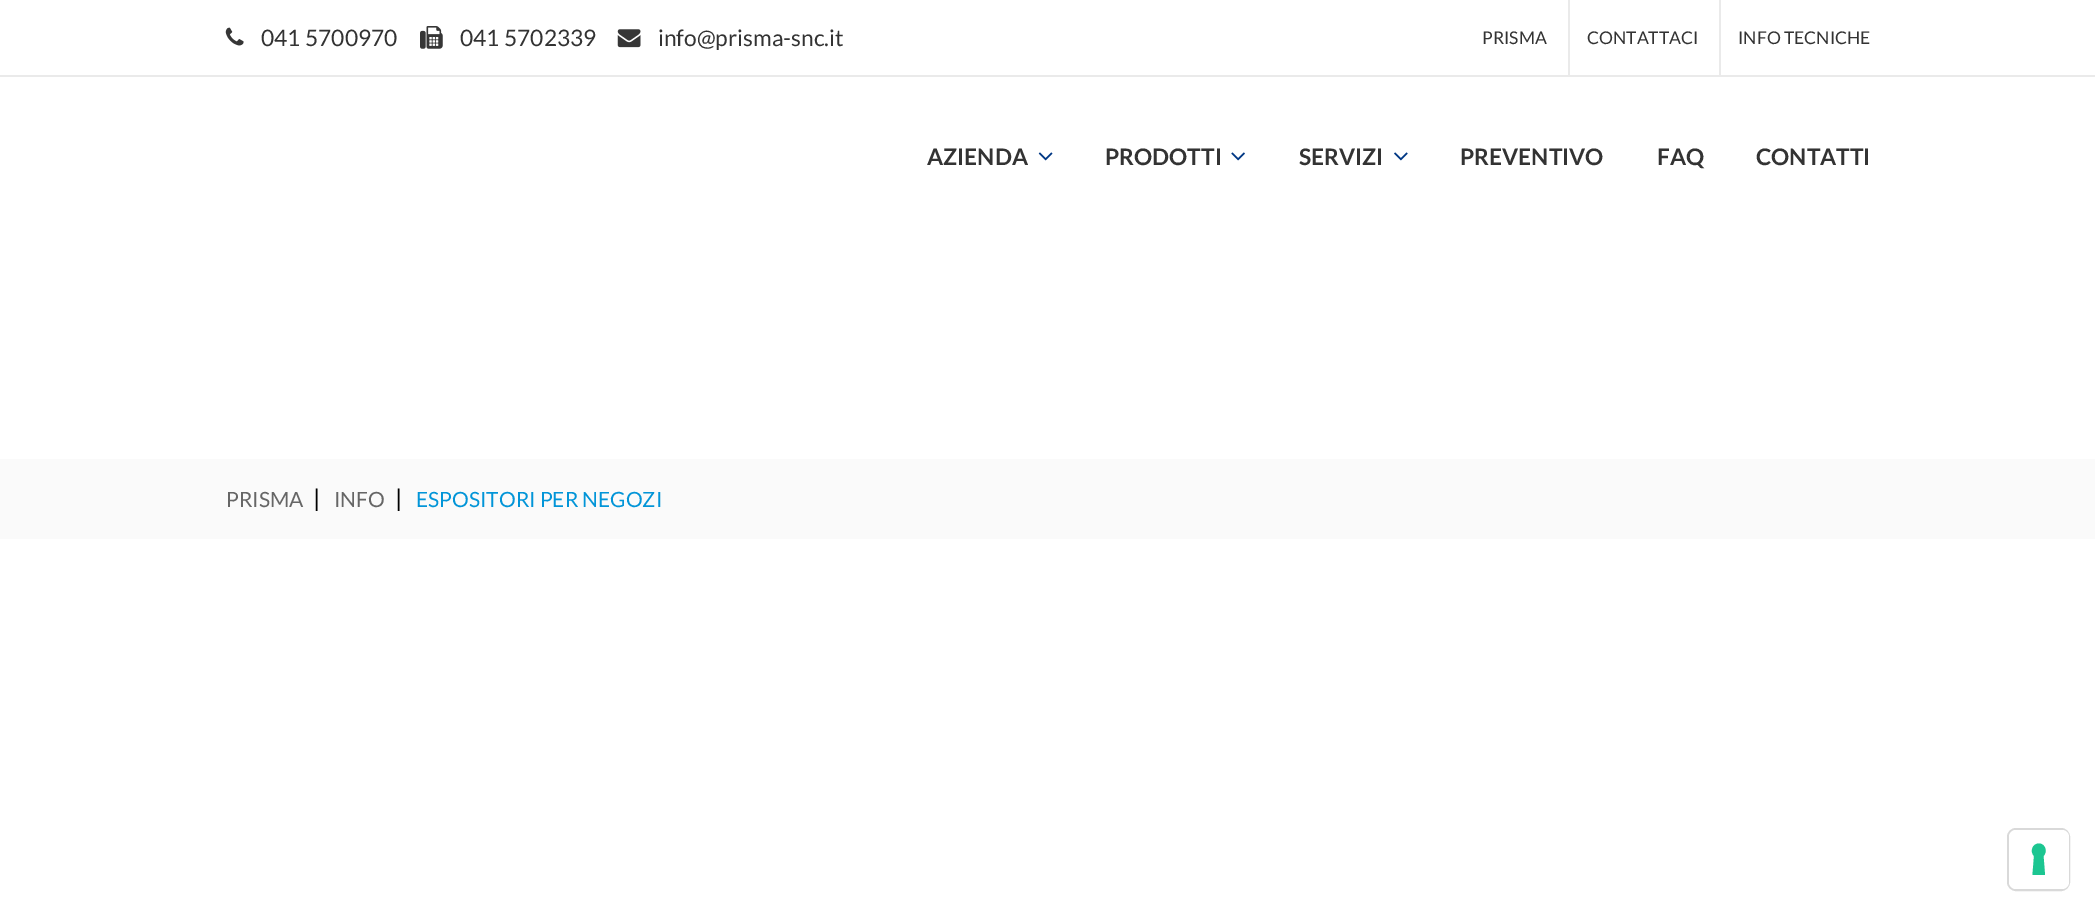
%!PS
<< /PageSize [2095 917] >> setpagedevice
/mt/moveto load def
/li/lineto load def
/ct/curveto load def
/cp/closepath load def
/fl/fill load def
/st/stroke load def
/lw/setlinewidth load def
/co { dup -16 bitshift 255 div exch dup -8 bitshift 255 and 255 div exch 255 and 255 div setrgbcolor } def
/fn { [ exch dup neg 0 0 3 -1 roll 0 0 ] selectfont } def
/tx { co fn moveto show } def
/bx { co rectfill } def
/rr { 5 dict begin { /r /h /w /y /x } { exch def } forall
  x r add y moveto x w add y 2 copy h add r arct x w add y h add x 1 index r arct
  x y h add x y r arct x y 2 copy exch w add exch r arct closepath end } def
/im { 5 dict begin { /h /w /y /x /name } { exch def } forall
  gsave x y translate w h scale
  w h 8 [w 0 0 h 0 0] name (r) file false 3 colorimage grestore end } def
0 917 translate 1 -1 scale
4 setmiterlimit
0 0 2095 917 16#FFFFFF bx
0 75 2095 2 16#EAEAEA bx
(media/1.raw) 225 27 19 19 im
(media/2.raw) 420 26 23 23 im
(media/3.raw) 617 29 24 19 im
1568 0 2 75 16#EAEAEA bx
1719 0 2 75 16#EAEAEA bx
(media/4.raw) 1038 152 15 9 im
(media/5.raw) 1231 152 14 9 im
(media/6.raw) 1394 152 14 9 im
0 459 2095 80 16#FAFAFA bx
16#D9D9D9 co
2 lw
2008 829 61 61 8 rr st
16#FFFFFF co
2009 830 60 59 7 rr fl
16#1CC691 co
2039 843.5 mt 2045 843.5 2048 851.5 2043.5 856 ct 2045 875 li 2032.5 875 li 2034 856 li 2029.5 851.5 2032.5 843.5 2039 843.5 ct cp eofill
(041 5700970) 261 46 /Lato-Regular 22.75 16#333333 tx
(041 5702339) 460 46 /Lato-Regular 22.75 16#333333 tx
(info@prisma-snc.it) 658 46 /Lato-Regular 22.75 16#333333 tx
(PRISMA) 1482 44 /Lato-Regular 17.5 16#333333 tx
(CONTATTACI) 1587 44 /Lato-Regular 17.5 16#333333 tx
(INFO TECNICHE) 1738 44 /Lato-Regular 17.5 16#333333 tx
(AZIENDA) 927 165 /Lato-Bold 22.75 16#333333 tx
(PRODOTTI) 1105 165 /Lato-Bold 22.75 16#333333 tx
(SERVIZI) 1299 165 /Lato-Bold 22.75 16#333333 tx
(PREVENTIVO) 1460 165 /Lato-Bold 22.75 16#333333 tx
(FAQ) 1657 165 /Lato-Bold 22.75 16#333333 tx
(CONTATTI) 1756 165 /Lato-Bold 22.75 16#333333 tx
(PRISMA) 226 507 /Lato-Regular 21 16#666666 tx
(|) 313 507 /Lato-Regular 24 16#000000 tx
(INFO) 334 507 /Lato-Regular 21 16#666666 tx
(|) 395 507 /Lato-Regular 24 16#000000 tx
(ESPOSITORI PER NEGOZI) 416 507 /Lato-Regular 21 16#0295D8 tx
showpage
